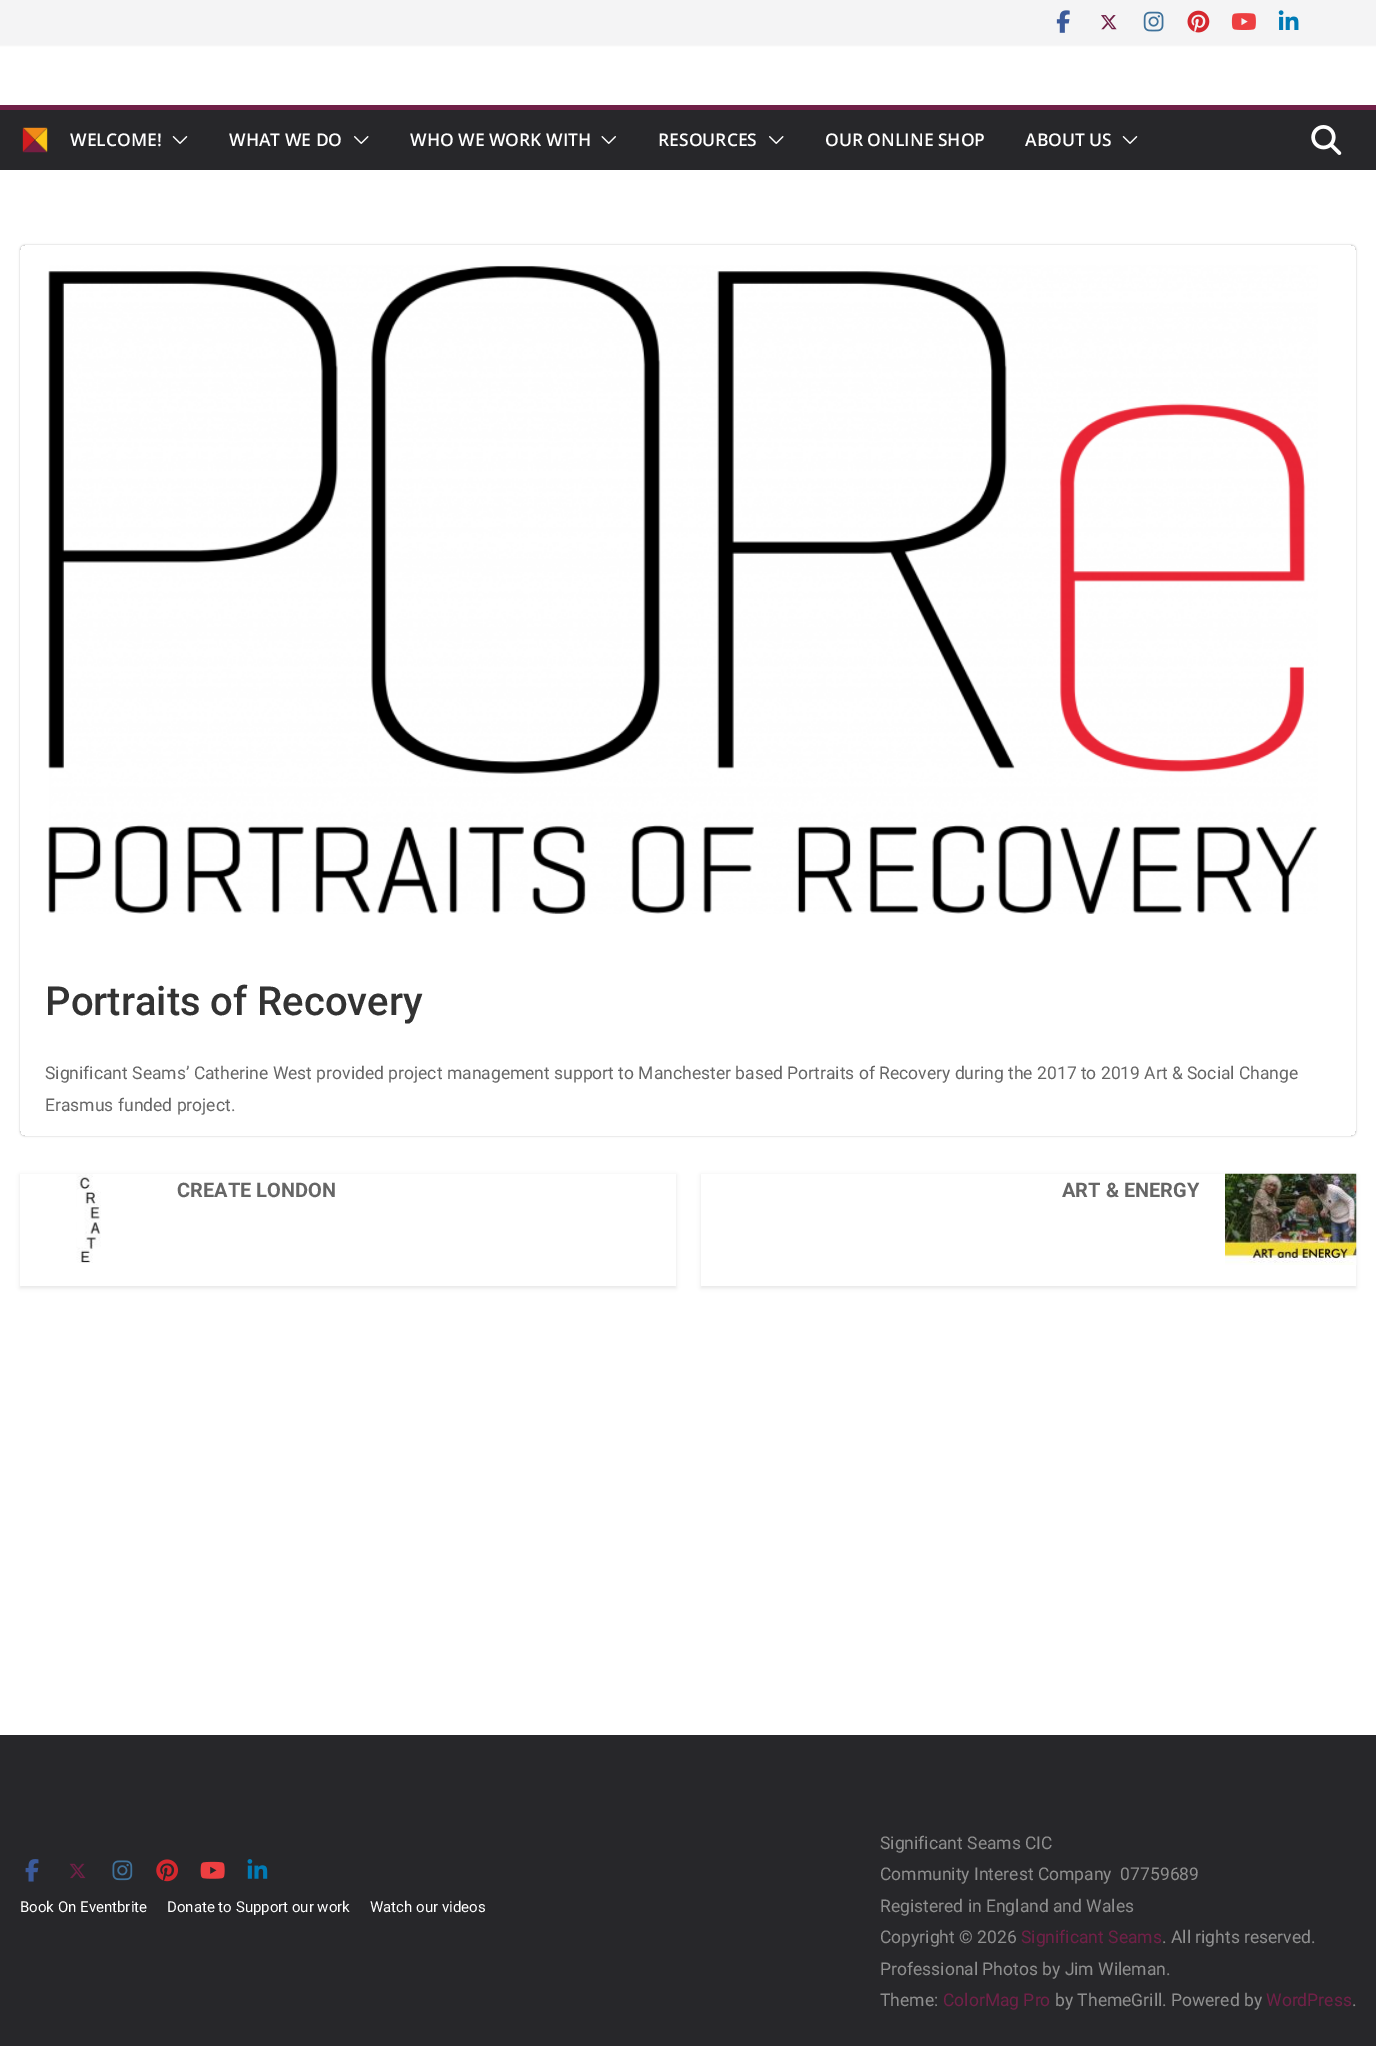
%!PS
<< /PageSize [1376 2046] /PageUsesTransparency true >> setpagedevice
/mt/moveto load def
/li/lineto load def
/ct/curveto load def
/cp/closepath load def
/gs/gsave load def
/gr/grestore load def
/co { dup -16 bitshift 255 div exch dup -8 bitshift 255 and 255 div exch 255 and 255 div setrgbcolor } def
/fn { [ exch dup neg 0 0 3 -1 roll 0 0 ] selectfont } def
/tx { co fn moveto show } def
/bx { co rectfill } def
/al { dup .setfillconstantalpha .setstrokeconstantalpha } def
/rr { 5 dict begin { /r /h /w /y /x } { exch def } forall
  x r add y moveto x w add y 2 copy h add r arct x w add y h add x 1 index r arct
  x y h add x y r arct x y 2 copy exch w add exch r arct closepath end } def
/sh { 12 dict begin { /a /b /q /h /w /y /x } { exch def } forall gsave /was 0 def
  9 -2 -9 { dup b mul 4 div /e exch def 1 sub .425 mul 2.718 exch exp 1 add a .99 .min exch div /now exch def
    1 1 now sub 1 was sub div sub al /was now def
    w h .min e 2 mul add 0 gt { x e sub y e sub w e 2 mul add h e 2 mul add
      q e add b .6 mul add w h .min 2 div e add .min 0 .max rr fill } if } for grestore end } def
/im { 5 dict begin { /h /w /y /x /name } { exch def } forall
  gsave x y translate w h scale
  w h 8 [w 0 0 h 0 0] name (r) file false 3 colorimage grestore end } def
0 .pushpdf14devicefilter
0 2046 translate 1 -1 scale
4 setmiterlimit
0 0 1376 2046 16#FFFFFF bx
16#000000 co
0 0 1376 45 0 1 .1 sh
0 0 1376 45 16#F4F4F5 bx
(media/1.raw) 1056 10 14 23 im
(media/2.raw) 1101 15 16 15 im
(media/3.raw) 1143 11 21 21 im
(media/4.raw) 1187 10 23 23 im
(media/5.raw) 1231 13 25 17 im
(media/6.raw) 1278 10 21 20 im
0 110 1376 60 16#27272A bx
0 105 1376 5 16#702047 bx
(media/7.raw) 22 127 26 26 im
(media/8.raw) 172 136 16 8 im
(media/9.raw) 354 136 15 8 im
(media/10.raw) 601 136 15 8 im
(media/9.raw) 769 136 15 8 im
(media/8.raw) 1122 136 16 8 im
(media/11.raw) 1311 125 31 30 im
gs
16 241 mt 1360 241 li 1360 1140 li 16 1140 li cp 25 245 mt 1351 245 li 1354 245 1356 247 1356 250 ct 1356 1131 li 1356 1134 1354 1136 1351 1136 ct 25 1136 li 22 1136 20 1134 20 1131 ct 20 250 li 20 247 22 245 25 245 ct cp eoclip newpath
16#000000 co
20 245 1336 891 5 1 .24 sh
gr
(media/12.raw) 48 265 1270 649 im
gs
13 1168 mt 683 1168 li 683 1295 li 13 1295 li cp 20 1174 mt 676 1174 li 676 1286 li 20 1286 li cp eoclip newpath
16#000000 co
20 1175 656 113 0 2 .1 sh
gr
(media/13.raw) 76 1174 25 89 im
gs
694 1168 mt 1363 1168 li 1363 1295 li 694 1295 li cp 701 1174 mt 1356 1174 li 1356 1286 li 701 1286 li cp eoclip newpath
16#000000 co
701 1175 655 113 0 2 .1 sh
gr
(media/14.raw) 1225 1173 132 92 im
0 1735 1376 311 16#27272A bx
(media/15.raw) 25 1859 14 23 im
(media/16.raw) 69 1863 17 16 im
(media/17.raw) 112 1860 21 21 im
(media/18.raw) 156 1859 23 23 im
(media/19.raw) 200 1861 25 18 im
(media/20.raw) 247 1859 21 20 im
(WELCOME!) 70 146 /OpenSans-SemiBold 17.5 16#FFFFFF tx
(WHAT WE DO) 229 146 /OpenSans-SemiBold 17.5 16#FFFFFF tx
(WHO WE WORK WITH) 410 146 /OpenSans-SemiBold 17.5 16#FFFFFF tx
(RESOURCES) 658 146 /OpenSans-SemiBold 17.5 16#FFFFFF tx
(OUR ONLINE SHOP) 825 146 /OpenSans-SemiBold 17.5 16#FFFFFF tx
(ABOUT US) 1025 146 /OpenSans-SemiBold 17.5 16#FFFFFF tx
(Portraits of Recovery) 45 1015 /Roboto-Medium 40 16#333333 tx
(Significant Seams’ Catherine West provided project management support to Manchester based Portraits of Recovery during the 2017 to 2019 Art & Social Change) 45 1079 /Roboto-Regular 17.5 16#666666 tx
(Erasmus funded project.) 45 1111 /Roboto-Regular 17.5 16#666666 tx
(CREATE LONDON) 177 1197 /Roboto-Bold 20 16#666666 tx
(ART & ENERGY) 1062 1197 /Roboto-Bold 20 16#666666 tx
(Book On Eventbrite) 20 1912 /Roboto-Regular 15 16#FFFFFF tx
(Donate to Support our work) 167 1912 /Roboto-Regular 15 16#FFFFFF tx
(Watch our videos) 370 1912 /Roboto-Regular 15 16#FFFFFF tx
(Significant Seams CIC) 880 1849 /Roboto-Regular 17.5 16#8F8F8F tx
(Community Interest Company  07759689) 880 1880 /Roboto-Regular 17.5 16#8F8F8F tx
(Registered in England and Wales) 880 1912 /Roboto-Regular 17.5 16#8F8F8F tx
(Copyright © 2026) 880 1943 /Roboto-Regular 17.5 16#8F8F8F tx
(Significant Seams) 1021 1943 /Roboto-Regular 17.5 16#702047 tx
(. All rights reserved.) 1162 1943 /Roboto-Regular 17.5 16#8F8F8F tx
(Professional Photos by Jim Wileman.) 880 1975 /Roboto-Regular 17.5 16#8F8F8F tx
(Theme:) 880 2006 /Roboto-Regular 17.5 16#8F8F8F tx
(ColorMag Pro) 943 2006 /Roboto-Regular 17.5 16#702047 tx
(by ThemeGrill. Powered by) 1055 2006 /Roboto-Regular 17.5 16#8F8F8F tx
(WordPress) 1266 2006 /Roboto-Regular 17.5 16#702047 tx
(.) 1352 2006 /Roboto-Regular 17.5 16#8F8F8F tx
.poppdf14devicefilter showpage
